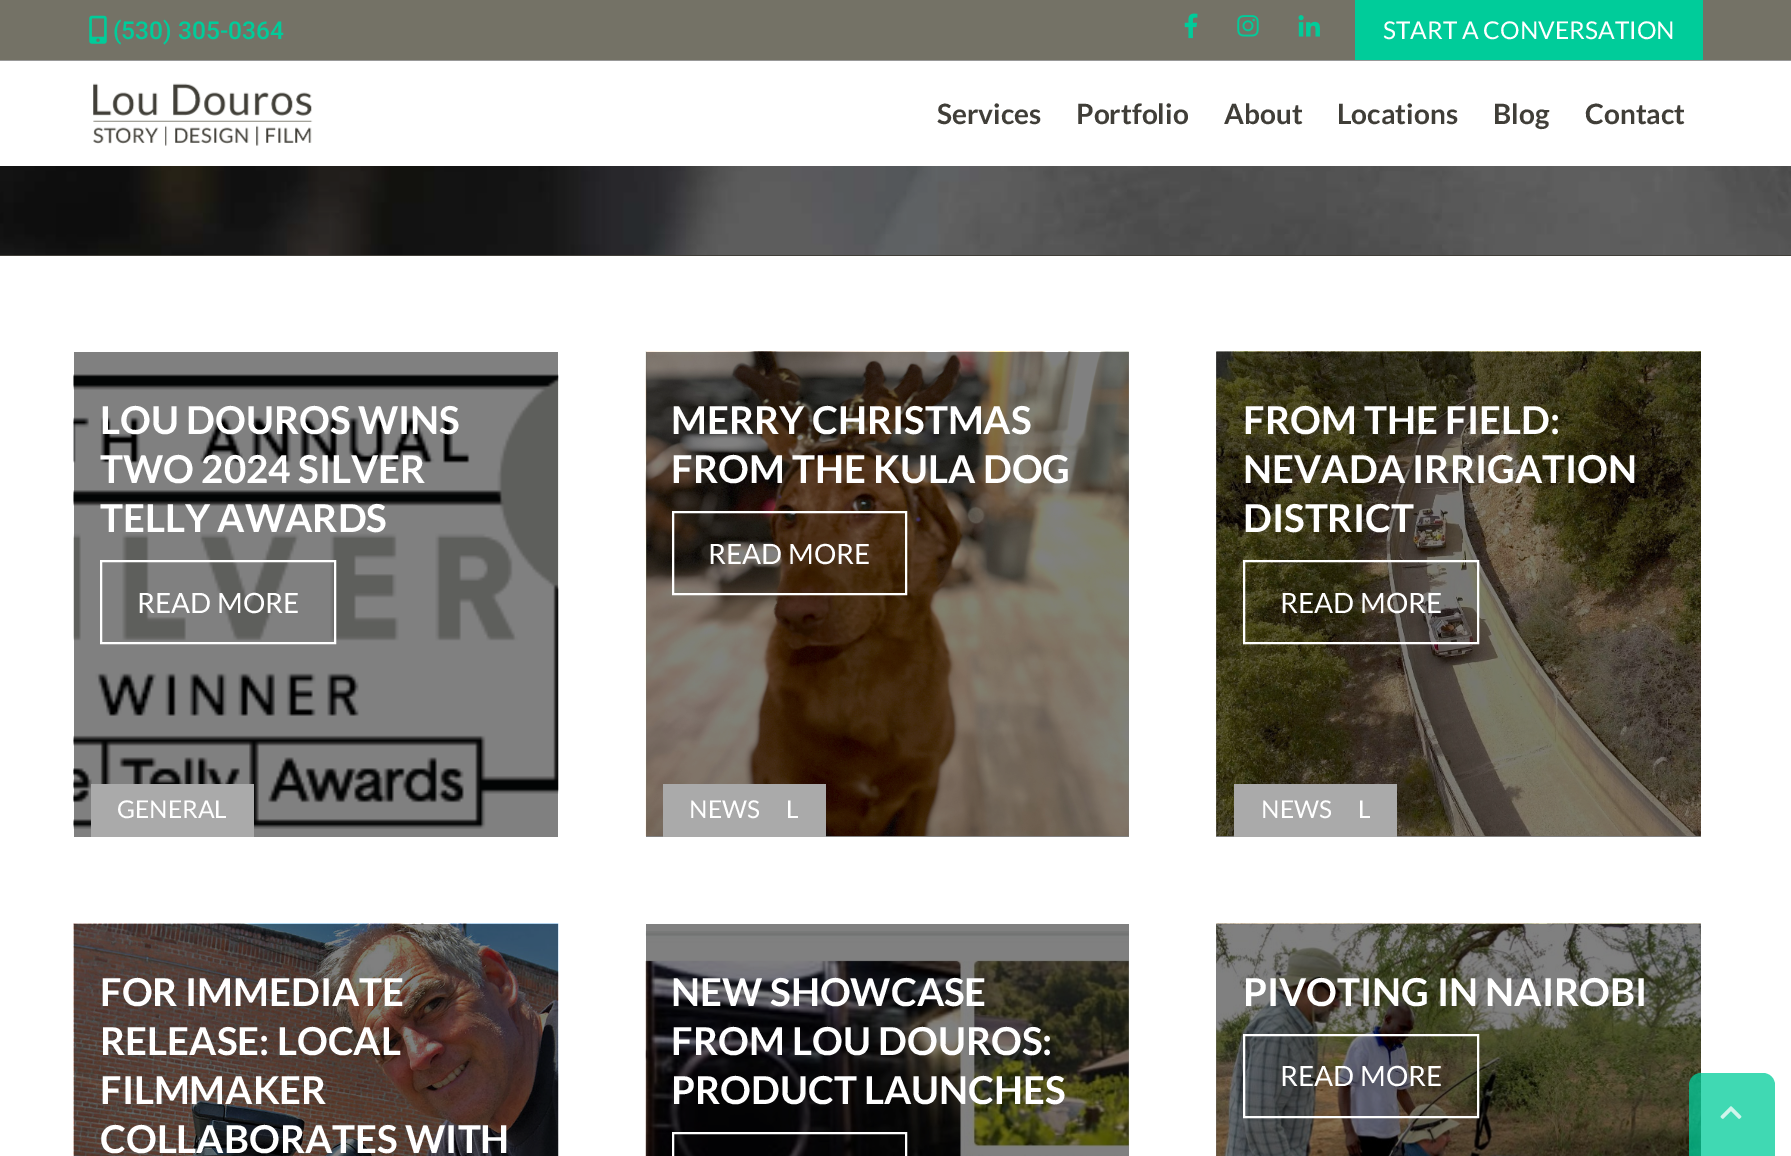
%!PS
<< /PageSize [1791 1156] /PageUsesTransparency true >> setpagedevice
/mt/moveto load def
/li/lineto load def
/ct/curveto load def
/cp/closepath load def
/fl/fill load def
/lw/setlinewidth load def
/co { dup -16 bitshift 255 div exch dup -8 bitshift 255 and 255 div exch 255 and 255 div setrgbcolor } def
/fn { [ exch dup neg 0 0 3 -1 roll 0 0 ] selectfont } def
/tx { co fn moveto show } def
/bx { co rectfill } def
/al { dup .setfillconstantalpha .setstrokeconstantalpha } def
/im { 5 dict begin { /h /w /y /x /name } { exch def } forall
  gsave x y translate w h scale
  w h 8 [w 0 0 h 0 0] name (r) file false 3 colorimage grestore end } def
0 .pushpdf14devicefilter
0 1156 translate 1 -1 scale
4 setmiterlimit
0 0 1791 1156 16#FFFFFF bx
646 924 483 232 16#808080 bx
1216 352 485 485 16#808080 bx
646 352 483 485 16#808080 bx
74 352 484 485 16#808080 bx
0 0 1791 60 16#747266 bx
0 60 1791 1 16#999999 bx
(media/1.raw) 89 15 18 29 im
(media/2.raw) 1184 13 14 26 im
(media/3.raw) 1237 15 22 22 im
(media/4.raw) 1298 15 22 22 im
1355 0 348 60 16#00CC9A bx
(media/5.raw) 93 83 220 63 im
0 255 1791 1 16#403E38 bx
(media/6.raw) 0 166 1791 89 im
(media/7.raw) 73 374 486 455 im
16#FFFFFF co
2 lw
101 561 234 82 rectstroke
91 784 163 53 16#AAAAAA bx
(media/8.raw) 645 351 484 485 im
16#FFFFFF co
673 512 233 82 rectstroke
663 784 163 53 16#AAAAAA bx
(media/9.raw) 1216 351 485 485 im
16#FFFFFF co
1244 561 234 82 rectstroke
1234 784 163 53 16#AAAAAA bx
(media/10.raw) 73 923 486 233 im
(media/11.raw) 645 931 484 225 im
16#FFFFFF co
673 1133 233 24 rectstroke
(media/12.raw) 1216 923 485 233 im
1244 1035 234 82 rectstroke
0.75 al
16#00CC9A co
1701 1073 mt 1763 1073 li 1769.5 1073 1775 1078.5 1775 1085 ct 1775 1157 li 1689 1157 li 1689 1085 li 1689 1078.5 1694.5 1073 1701 1073 ct cp fl
1 al
(media/13.raw) 1720 1106 22 13 im
(\(530\) 305-0364) 113 39 /Roboto-Medium 24.5 16#00CC9A tx
(START A CONVERSATION) 1383 39 /Lato-Regular 24.5 16#FFFFFF tx
(Services) 937 124 /Lato-Bold 28 16#403E38 tx
(Portfolio) 1076 124 /Lato-Bold 28 16#403E38 tx
(About) 1224 124 /Lato-Bold 28 16#403E38 tx
(Locations) 1337 124 /Lato-Bold 28 16#403E38 tx
(Blog) 1493 124 /Lato-Bold 28 16#403E38 tx
(Contact) 1585 124 /Lato-Bold 28 16#403E38 tx
(LOU DOUROS WINS) 100 434 /Lato-Bold 38.5 16#FFFFFF tx
(TWO 2024 SILVER) 100 483 /Lato-Bold 38.5 16#FFFFFF tx
(TELLY AWARDS) 100 532 /Lato-Bold 38.5 16#FFFFFF tx
(READ MORE) 137 613 /Lato-Regular 28 16#FFFFFF tx
(GENERAL) 117 818 /Lato-Regular 24.5 16#FFFFFF tx
(MERRY CHRISTMAS) 671 434 /Lato-Bold 38.5 16#FFFFFF tx
(FROM THE KULA DOG) 671 483 /Lato-Bold 38.5 16#FFFFFF tx
(READ MORE) 708 564 /Lato-Regular 28 16#FFFFFF tx
(NEWS) 689 818 /Lato-Regular 24.5 16#FFFFFF tx
(L) 786 818 /Lato-Regular 24.5 16#FFFFFF tx
(FROM THE FIELD:) 1243 434 /Lato-Bold 38.5 16#FFFFFF tx
(NEVADA IRRIGATION) 1243 483 /Lato-Bold 38.5 16#FFFFFF tx
(DISTRICT) 1243 532 /Lato-Bold 38.5 16#FFFFFF tx
(READ MORE) 1280 613 /Lato-Regular 28 16#FFFFFF tx
(NEWS) 1261 818 /Lato-Regular 24.5 16#FFFFFF tx
(L) 1358 818 /Lato-Regular 24.5 16#FFFFFF tx
(FOR IMMEDIATE) 100 1006 /Lato-Bold 38.5 16#FFFFFF tx
(RELEASE: LOCAL) 100 1055 /Lato-Bold 38.5 16#FFFFFF tx
(FILMMAKER) 100 1104 /Lato-Bold 38.5 16#FFFFFF tx
(COLLABORATES WITH) 100 1153 /Lato-Bold 38.5 16#FFFFFF tx
(NEW SHOWCASE) 671 1006 /Lato-Bold 38.5 16#FFFFFF tx
(FROM LOU DOUROS:) 671 1055 /Lato-Bold 38.5 16#FFFFFF tx
(PRODUCT LAUNCHES) 671 1104 /Lato-Bold 38.5 16#FFFFFF tx
(PIVOTING IN NAIROBI) 1243 1006 /Lato-Bold 38.5 16#FFFFFF tx
(READ MORE) 1280 1086 /Lato-Regular 28 16#FFFFFF tx
.poppdf14devicefilter showpage
